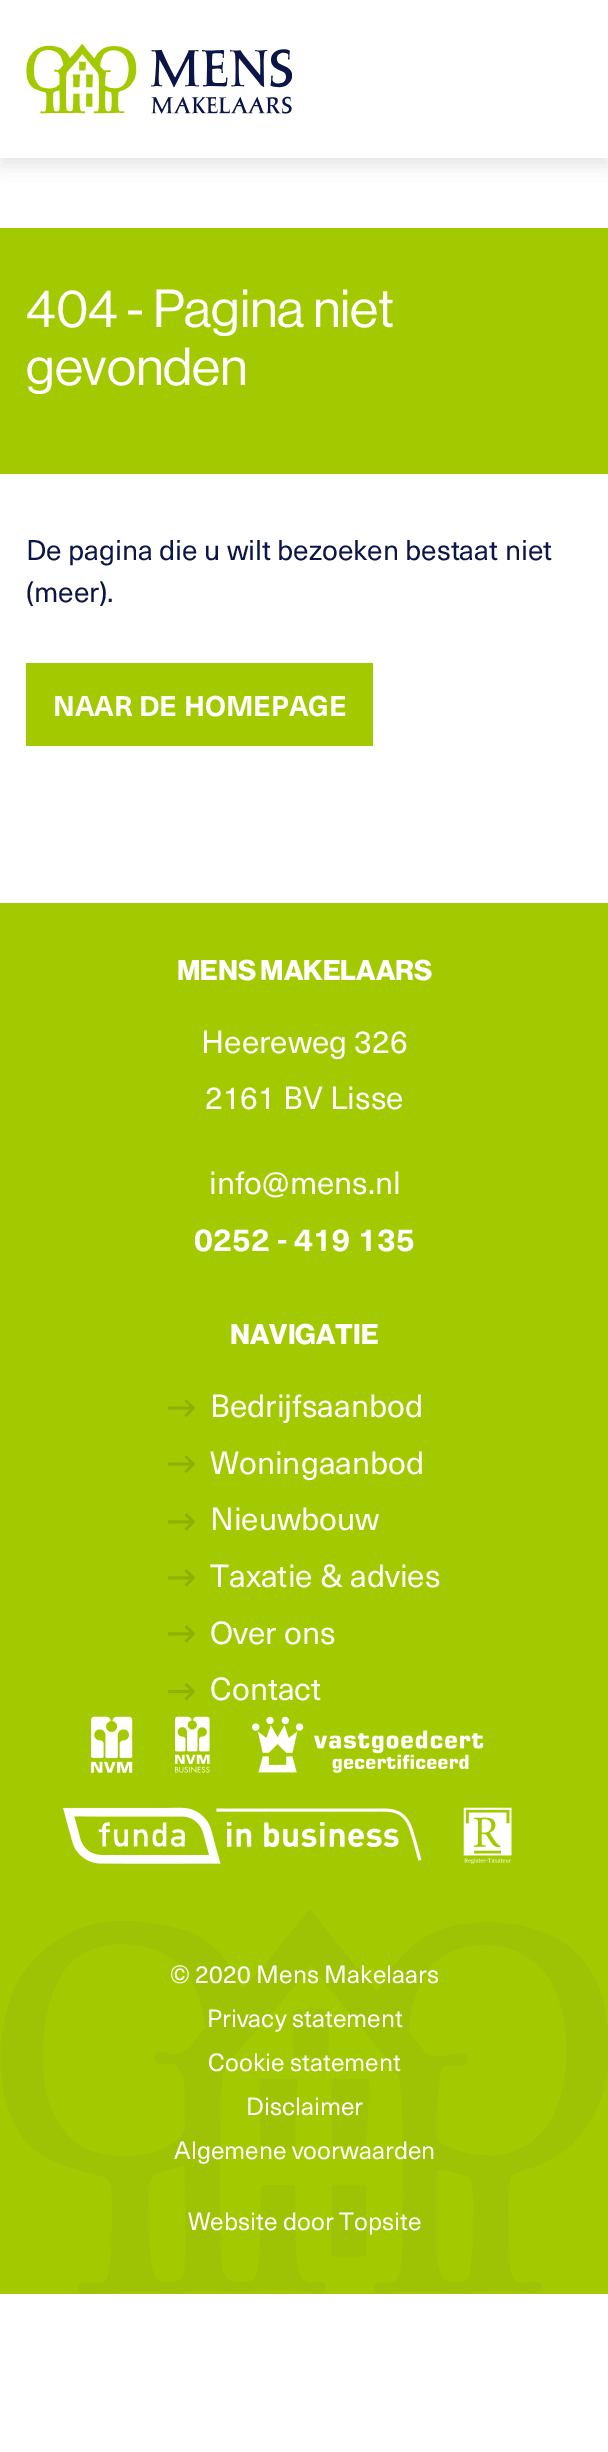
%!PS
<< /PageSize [608 2452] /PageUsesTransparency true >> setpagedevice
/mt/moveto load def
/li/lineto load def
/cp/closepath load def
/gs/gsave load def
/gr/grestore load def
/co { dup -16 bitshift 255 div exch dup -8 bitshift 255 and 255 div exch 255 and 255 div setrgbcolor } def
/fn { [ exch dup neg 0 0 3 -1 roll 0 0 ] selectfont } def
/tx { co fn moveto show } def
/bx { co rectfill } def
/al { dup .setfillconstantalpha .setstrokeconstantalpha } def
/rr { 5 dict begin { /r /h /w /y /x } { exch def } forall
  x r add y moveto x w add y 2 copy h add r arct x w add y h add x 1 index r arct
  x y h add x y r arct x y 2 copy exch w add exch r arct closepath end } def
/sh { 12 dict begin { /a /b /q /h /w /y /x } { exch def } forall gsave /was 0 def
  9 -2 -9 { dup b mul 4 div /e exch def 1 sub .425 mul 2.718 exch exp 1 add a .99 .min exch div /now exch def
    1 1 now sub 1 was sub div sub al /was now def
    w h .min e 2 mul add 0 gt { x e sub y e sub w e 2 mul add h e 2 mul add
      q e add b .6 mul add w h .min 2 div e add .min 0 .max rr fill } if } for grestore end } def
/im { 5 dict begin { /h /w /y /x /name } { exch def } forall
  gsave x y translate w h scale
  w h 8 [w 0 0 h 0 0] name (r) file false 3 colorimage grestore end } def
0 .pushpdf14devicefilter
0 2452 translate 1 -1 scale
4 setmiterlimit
0 0 608 2452 16#FFFFFF bx
gs
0 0 mt 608 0 li 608 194 li 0 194 li cp 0 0 mt 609 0 li 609 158 li 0 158 li cp eoclip newpath
16#000000 co
0 9 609 157 0 9 .1 sh
gr
(media/1.raw) 26 44 266 70 im
0 228 608 246 16#A3CA00 bx
26 663 347 83 16#A3CA00 bx
0 903 608 1391 16#A3CA00 bx
(media/2.raw) 0 1909 608 385 im
(media/3.raw) 168 1399 27 18 im
(media/3.raw) 168 1455 27 18 im
(media/4.raw) 168 1513 27 18 im
(media/4.raw) 168 1569 27 18 im
(media/4.raw) 168 1625 27 18 im
(media/5.raw) 168 1683 28 18 im
(media/6.raw) 91 1716 42 57 im
(media/7.raw) 175 1716 35 57 im
(media/8.raw) 252 1716 232 57 im
(media/9.raw) 63 1807 359 57 im
(media/10.raw) 463 1807 49 57 im
(404 - Pagina niet) 26 327 /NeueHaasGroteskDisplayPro-Medium 52.5 16#FFFFFF tx
(gevonden) 26 385 /NeueHaasGroteskDisplayPro-Medium 52.5 16#FFFFFF tx
(De pagina die u wilt bezoeken bestaat niet) 26 560 /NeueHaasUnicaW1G-Regular 28 16#0B1547 tx
(\(meer\).) 26 602 /NeueHaasUnicaW1G-Regular 28 16#0B1547 tx
(NAAR DE HOMEPAGE) 53 716 /NeueHaasUnicaW1G-Bold 28 16#FFFFFF tx
(MENS MAKELAARS) 177 980 /NeueHaasGroteskDisplayPro-Bold 28 16#FFFFFF tx
(Heereweg 326) 201 1053 /NeueHaasUnicaW1G-Regular 31.5 16#FFFFFF tx
(2161 BV Lisse) 205 1109 /NeueHaasUnicaW1G-Regular 31.5 16#FFFFFF tx
(info@mens.nl) 209 1194 /NeueHaasUnicaW1G-Regular 31.5 16#FFFFFF tx
(0252 - 419 135) 194 1251 /NeueHaasUnicaW1G-Bold 31.5 16#FFFFFF tx
(NAVIGATIE) 230 1344 /NeueHaasGroteskDisplayPro-Bold 28 16#FFFFFF tx
(Bedrijfsaanbod) 210 1417 /NeueHaasUnicaW1G-Regular 31.5 16#FFFFFF tx
(Woningaanbod) 210 1474 /NeueHaasUnicaW1G-Regular 31.5 16#FFFFFF tx
(Nieuwbouw) 210 1530 /NeueHaasUnicaW1G-Regular 31.5 16#FFFFFF tx
(Taxatie & advies) 210 1587 /NeueHaasUnicaW1G-Regular 31.5 16#FFFFFF tx
(Over ons) 210 1644 /NeueHaasUnicaW1G-Regular 31.5 16#FFFFFF tx
(Contact) 210 1700 /NeueHaasUnicaW1G-Regular 31.5 16#FFFFFF tx
(© 2020 Mens Makelaars) 170 1983 /NeueHaasUnicaW1G-Regular 24.5 16#FFFFFF tx
(Privacy statement) 207 2027 /NeueHaasUnicaW1G-Regular 24.5 16#FFFFFF tx
(Cookie statement) 208 2071 /NeueHaasUnicaW1G-Regular 24.5 16#FFFFFF tx
(Disclaimer) 246 2115 /NeueHaasUnicaW1G-Regular 24.5 16#FFFFFF tx
(Algemene voorwaarden) 174 2159 /NeueHaasUnicaW1G-Regular 24.5 16#FFFFFF tx
(Website door Topsite) 188 2230 /NeueHaasUnicaW1G-Regular 24.5 16#FFFFFF tx
.poppdf14devicefilter showpage
